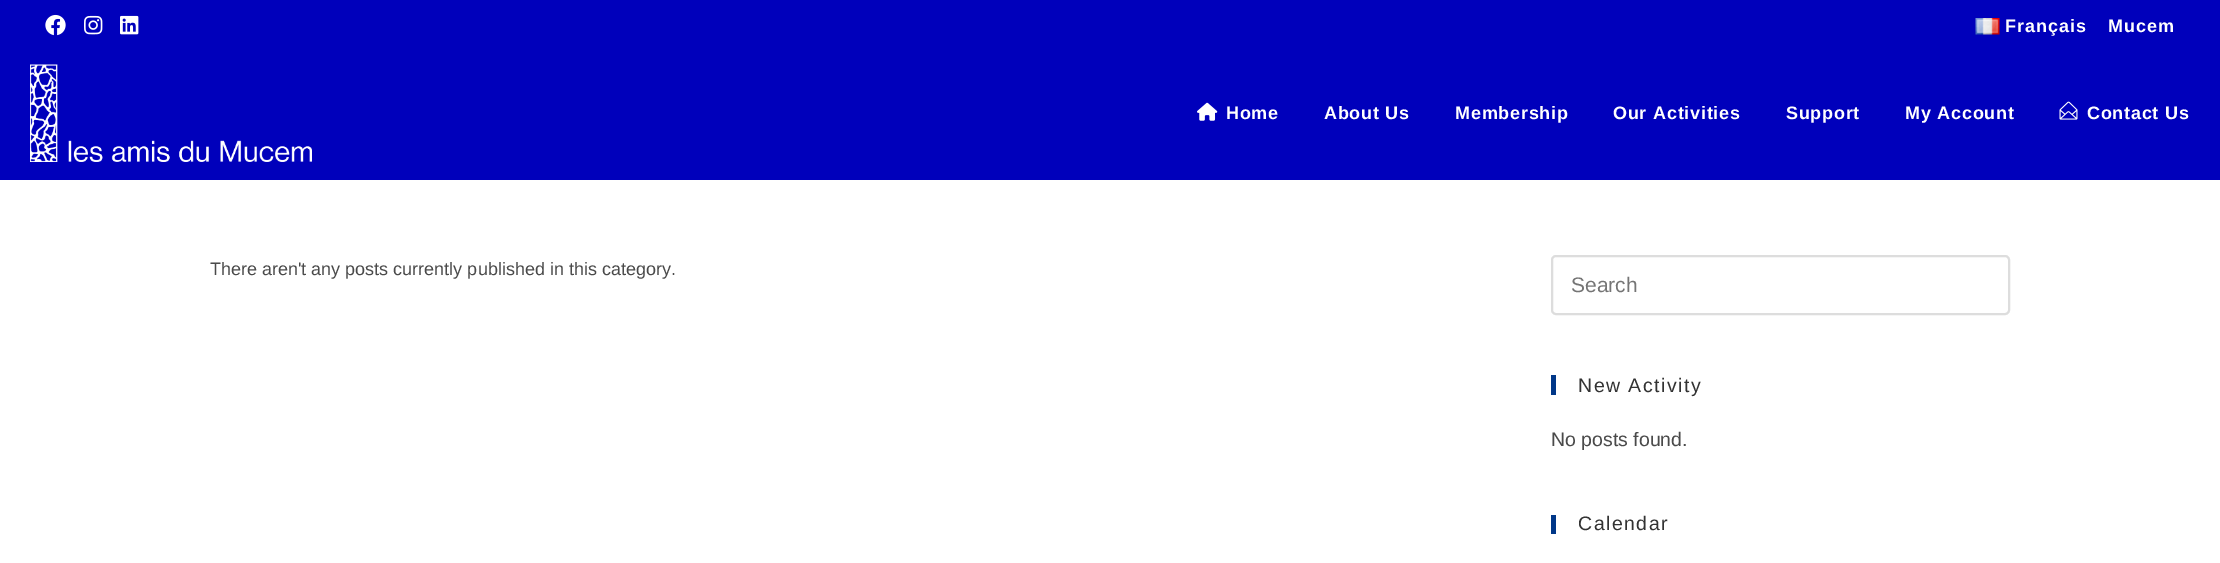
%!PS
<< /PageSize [2220 563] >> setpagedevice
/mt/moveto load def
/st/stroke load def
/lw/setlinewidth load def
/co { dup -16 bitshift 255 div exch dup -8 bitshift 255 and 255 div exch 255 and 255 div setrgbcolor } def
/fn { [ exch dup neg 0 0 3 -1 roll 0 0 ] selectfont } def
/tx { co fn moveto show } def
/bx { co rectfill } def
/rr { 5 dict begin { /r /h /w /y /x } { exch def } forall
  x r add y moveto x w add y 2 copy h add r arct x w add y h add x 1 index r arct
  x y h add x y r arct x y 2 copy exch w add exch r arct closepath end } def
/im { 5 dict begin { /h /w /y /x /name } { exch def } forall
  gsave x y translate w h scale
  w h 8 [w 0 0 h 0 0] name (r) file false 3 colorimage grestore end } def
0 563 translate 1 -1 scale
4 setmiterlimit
0 0 2220 563 16#FFFFFF bx
0 0 2220 180 16#0000BB bx
(media/1.raw) 45 14 21 22 im
(media/2.raw) 84 15 19 20 im
(media/3.raw) 120 15 19 20 im
(media/4.raw) 1975 18 25 17 im
(media/5.raw) 30 64 282 98 im
(media/6.raw) 1197 102 21 19 im
(media/7.raw) 2059 101 19 19 im
16#DDDDDD co
2 lw
1552 256 457 58 4 rr st
1551 375 5 20 16#003788 bx
1551 515 5 19 16#003788 bx
/LiberationSans-Bold 18 fn
16#FFFFFF co
2005 32 mt 1 0 (Français) ashow
2108 32 mt 1 0 (Mucem) ashow
1226 119 mt .75 0 (Home) ashow
1324 119 mt .75 0 (About Us) ashow
1455 119 mt .75 0 (Membership) ashow
1613 119 mt .75 0 (Our Activities) ashow
1786 119 mt .75 0 (Support) ashow
1905 119 mt .75 0 (My Account) ashow
2087 119 mt .75 0 (Contact Us) ashow
(There aren't any posts currently published in this category.) 210 275 /LiberationSans-Regular 18 16#4A4A4A tx
(Search) 1571 292 /LiberationSans-Regular 21 16#757575 tx
/LiberationSans-Regular 19.5 fn
16#333333 co
1578 392 mt 1.5 0 (New Activity) ashow
(No posts found.) 1551 446 /LiberationSans-Regular 19.5 16#4A4A4A tx
16#333333 co
1578 530 mt 1.5 0 (Calendar) ashow
showpage
